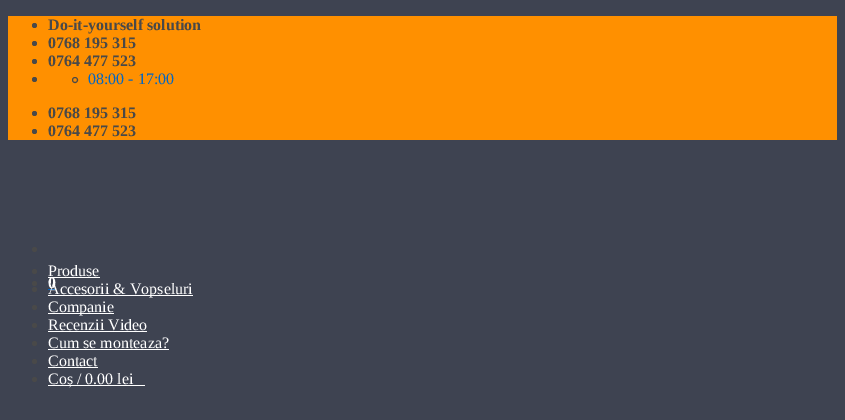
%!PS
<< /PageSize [845 420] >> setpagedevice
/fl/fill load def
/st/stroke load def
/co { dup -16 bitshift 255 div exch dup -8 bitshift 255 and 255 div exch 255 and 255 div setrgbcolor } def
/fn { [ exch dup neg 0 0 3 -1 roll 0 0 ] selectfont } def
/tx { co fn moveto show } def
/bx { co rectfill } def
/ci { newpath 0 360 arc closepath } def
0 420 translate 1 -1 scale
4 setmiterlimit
0 0 845 420 16#3E4351 bx
8 16 829 124 16#FF9000 bx
16#494949 co
34.5 25.5 2.5 ci fl
34.5 43.5 2.5 ci fl
34.5 61.5 2.5 ci fl
34.5 79.5 2.5 ci fl
75 80 2.5 ci st
34.5 113.5 2.5 ci fl
34.5 131.5 2.5 ci fl
34.5 271.5 2.5 ci fl
48 277 52 1 16#FFFFFF bx
16#494949 co
34.5 289.5 2.5 ci fl
48 295 145 1 16#FFFFFF bx
16#494949 co
34.5 307.5 2.5 ci fl
48 313 66 1 16#FFFFFF bx
16#494949 co
34.5 325.5 2.5 ci fl
48 331 99 1 16#FFFFFF bx
16#494949 co
34.5 343.5 2.5 ci fl
48 349 121 1 16#FFFFFF bx
16#494949 co
34.5 361.5 2.5 ci fl
48 367 50 1 16#FFFFFF bx
16#494949 co
34.5 379.5 2.5 ci fl
48 385 85 1 16#FFFFFF bx
133 385 12 1 16#FFFFFF bx
16#494949 co
34.5 249.5 2.5 ci fl
34.5 283.5 2.5 ci fl
48 289 8 1 16#0266C3 bx
(Do-it-yourself solution) 48 30 /LiberationSerif-Bold 16 16#494949 tx
(0768 195 315) 48 48 /LiberationSerif-Bold 16 16#494949 tx
(0764 477 523) 48 66 /LiberationSerif-Bold 16 16#494949 tx
(08:00 - 17:00) 88 84 /LiberationSerif-Regular 16 16#0266C3 tx
(0768 195 315) 48 118 /LiberationSerif-Bold 16 16#494949 tx
(0764 477 523) 48 136 /LiberationSerif-Bold 16 16#494949 tx
(Produse) 48 276 /LiberationSerif-Regular 16 16#FFFFFF tx
(Companie) 48 312 /LiberationSerif-Regular 16 16#FFFFFF tx
(Recenzii Video) 48 330 /LiberationSerif-Regular 16 16#FFFFFF tx
(Cum se monteaza?) 48 348 /LiberationSerif-Regular 16 16#FFFFFF tx
(Contact) 48 366 /LiberationSerif-Regular 16 16#FFFFFF tx
(Coș / 0.00 lei) 48 384 /LiberationSerif-Regular 16 16#FFFFFF tx
(0) 48 288 /LiberationSerif-Bold 16 16#FFFFFF tx
(Accesorii & Vopseluri) 48 294 /LiberationSerif-Regular 16 16#FFFFFF tx
showpage
